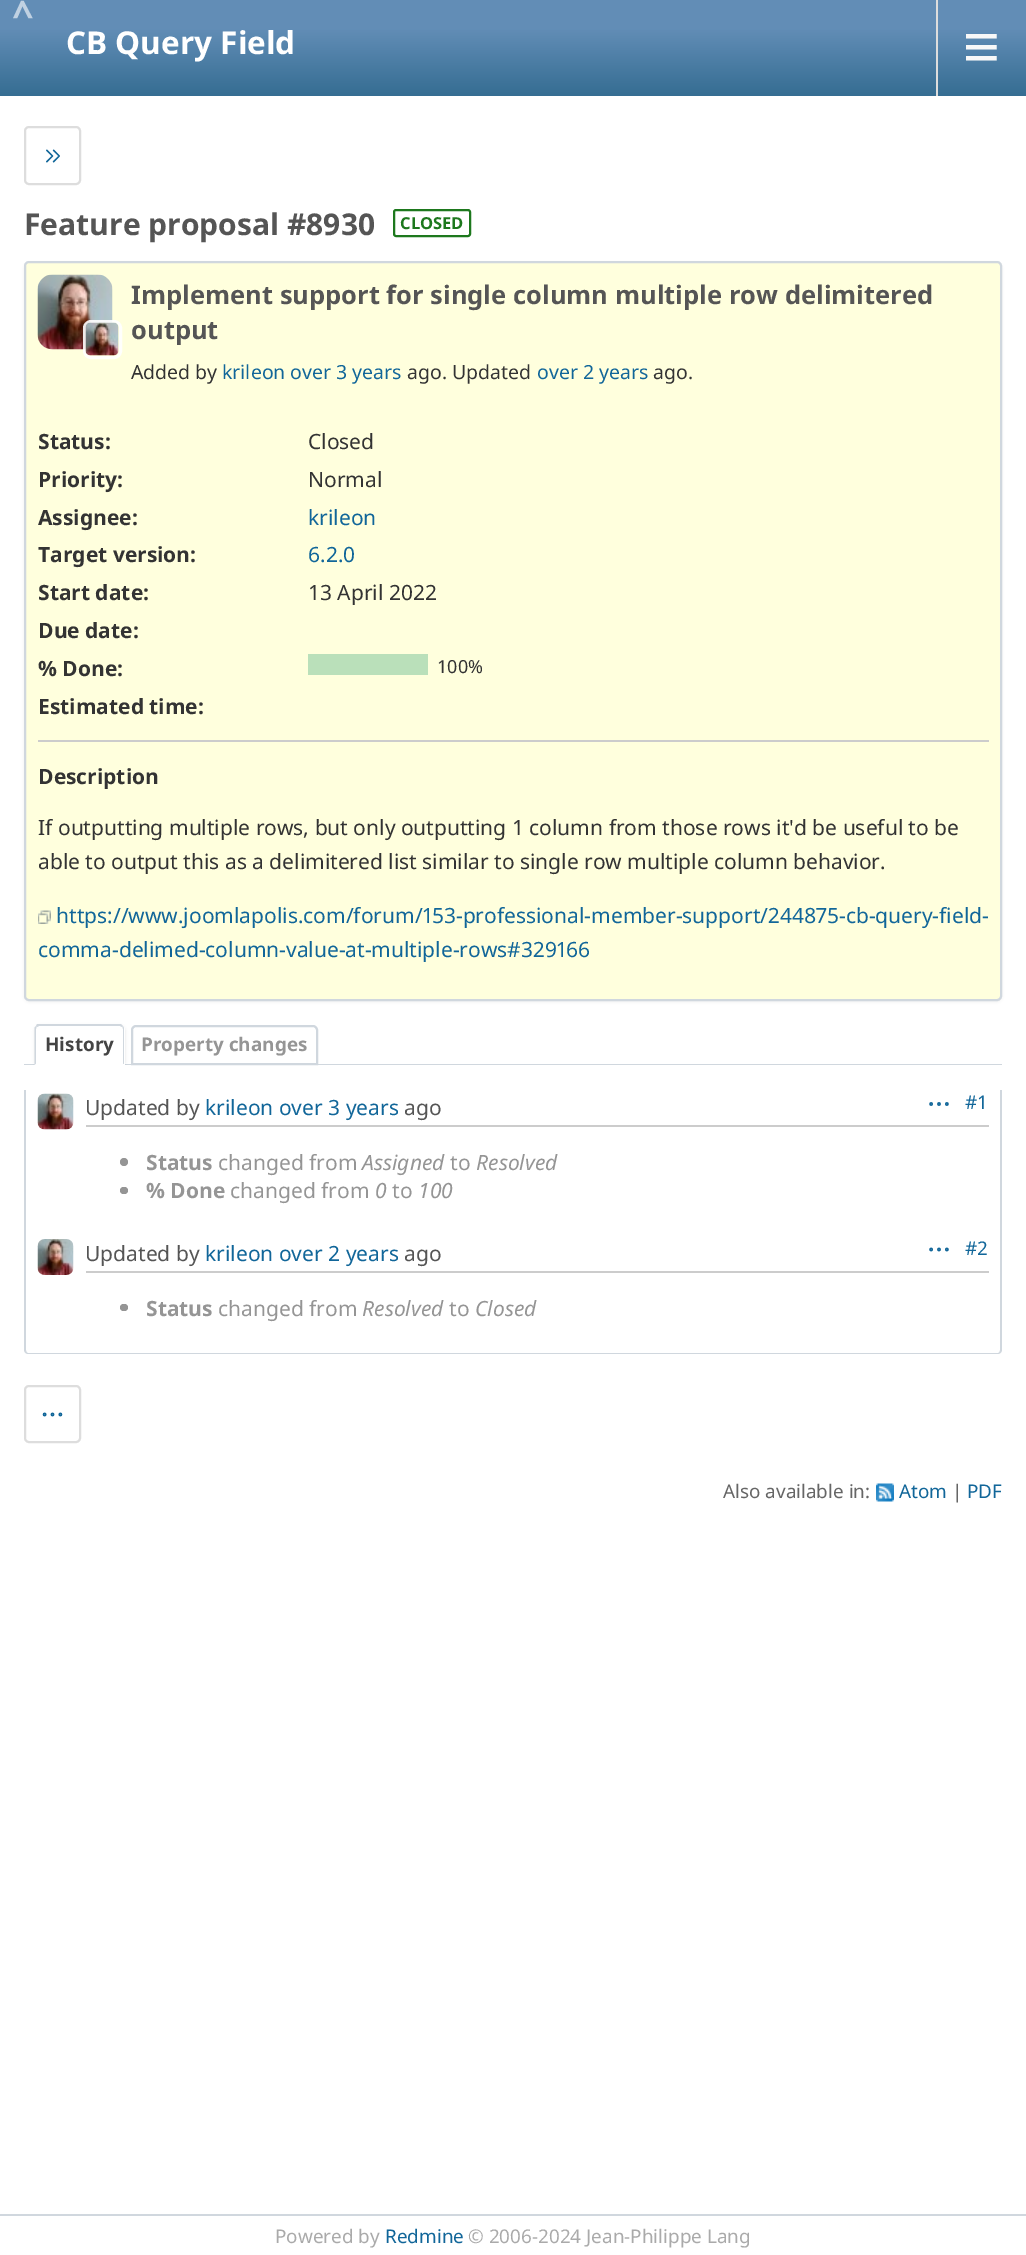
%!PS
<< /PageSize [1026 2255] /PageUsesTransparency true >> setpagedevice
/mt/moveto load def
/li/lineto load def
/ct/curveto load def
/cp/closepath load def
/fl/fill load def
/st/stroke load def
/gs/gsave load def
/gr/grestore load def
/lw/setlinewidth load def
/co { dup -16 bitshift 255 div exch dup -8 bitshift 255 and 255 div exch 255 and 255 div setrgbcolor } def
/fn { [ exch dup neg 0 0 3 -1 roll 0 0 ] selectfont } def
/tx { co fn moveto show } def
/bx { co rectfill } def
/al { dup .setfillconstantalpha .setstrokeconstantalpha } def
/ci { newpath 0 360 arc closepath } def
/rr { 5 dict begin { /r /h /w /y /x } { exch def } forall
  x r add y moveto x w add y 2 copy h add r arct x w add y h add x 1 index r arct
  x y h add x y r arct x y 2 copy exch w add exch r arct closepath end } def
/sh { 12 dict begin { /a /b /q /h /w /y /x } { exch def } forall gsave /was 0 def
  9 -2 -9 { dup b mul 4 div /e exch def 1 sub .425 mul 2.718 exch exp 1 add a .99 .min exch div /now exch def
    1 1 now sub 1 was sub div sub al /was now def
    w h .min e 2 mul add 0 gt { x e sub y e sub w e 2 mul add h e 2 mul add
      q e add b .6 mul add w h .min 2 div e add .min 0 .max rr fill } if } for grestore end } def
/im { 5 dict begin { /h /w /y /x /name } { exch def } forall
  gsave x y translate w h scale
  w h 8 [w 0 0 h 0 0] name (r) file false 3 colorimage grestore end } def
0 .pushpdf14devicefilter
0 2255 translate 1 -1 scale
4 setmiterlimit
0 0 1026 2255 16#FFFFFF bx
gs 0 0 mt 1026 0 li 1026 96 li 0 96 li cp clip newpath
<< /ShadingType 2 /ColorSpace /DeviceRGB /Coords [513 0 513 96] /Extend [true true] /Function << /FunctionType 3 /Domain [0 1] /Functions [<< /FunctionType 2 /Domain [0 1] /C0 [.384 .553 .714] /C1 [.384 .553 .714] /N 1 >> << /FunctionType 2 /Domain [0 1] /C0 [.384 .553 .714] /C1 [.208 .427 .573] /N 1 >>] /Bounds [.3] /Encode [0 1 0 1] >> >> shfill gr
936 0 2 96 16#DDDDDD bx
2 lw
25 127 55 57 4 rr st
(media/1.raw) 46 149 14 14 im
16#1D781D co
394 210 76 26 2 rr st
16#000000 co
24 263 978 739 5 1.5 .05 sh
16#FFFFDD co
25 262 976 738 4 rr gs fl gr
16#D0D7DE co
st
(media/2.raw) 37 274 76 76 im
0.9 al
16#FFFFFF co
3 lw
84.5 321.5 36 36 6.5 rr st
1 al
(media/3.raw) 85 322 34 34 im
308 654 120 21 16#BAE0BA bx
38 740 951 2 16#CCCCCC bx
(media/4.raw) 38 910 13 14 im
24 1064 978 1 16#D0D7DE bx
gs
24 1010 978 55 rectclip
16#000000 co
35 1026 90 41 5 1.5 .1 sh
gr
16#FFFFFF co
40 1025 mt 120 1025 li 123 1025 125 1027 125 1030 ct 125 1065 li 35 1065 li 35 1030 li 35 1027 37 1025 40 1025 ct cp fl
16#D0D7DE co
39 1026 mt 37 1027 li 36 1026 li 37 1024 li 121 1024 li 123 1026 li 122 1027 li 120 1026 li cp fl
123 1026 mt 123.5 1027 124 1028 124 1029 ct 124 1064.5 li 123 1063.5 li 123 1029 li 123 1028 123 1027 122 1027 ct cp fl
16#FFFFFF co
34 1065 mt 124 1065 li 124 1064 li 123 1064 li 36 1064 li cp fl
16#D0D7DE co
34.5 1065 mt 34.5 1027.5 li 36 1026 li 37 1027 li 36 1027 36 1028 36 1029 ct 36 1063.5 li cp fl
2 lw
136 1026 mt 313 1026 li 315 1026 317 1028 317 1030 ct 317 1064 li 132 1064 li 132 1030 li 132 1028 134 1026 136 1026 ct cp st
24 1090 mt 1002 1090 li 1002 1350 li 1002 1352 1000 1354 998 1354 ct 28 1354 li 26 1354 24 1352 24 1350 ct cp 26 1090 mt 1000 1090 li 1000 1350 li 1000 1352 999 1353 998 1353 ct 28 1353 li 27 1353 26 1352 26 1350 ct cp eofill
86 1125 903 2 16#CCCCCC bx
(media/5.raw) 37 1093 37 37 im
(media/6.raw) 929 1102 20 4 im
16#959595 co
124 1162 4 ci fl
120 1187 8 7 3.5 rr fl
86 1271 903 2 16#CCCCCC bx
(media/7.raw) 37 1239 37 36 im
(media/8.raw) 929 1247 20 5 im
16#959595 co
120 1304 8 7 3.5 rr fl
16#DDDDDD co
25 1386 55 56 4 rr st
(media/9.raw) 42 1412 21 5 im
(media/10.raw) 876 1483 18 19 im
0 2214 1026 2 16#D0D7DE bx
/NotoSans-Bold 38 fn
16#C0D1E2 co
12 28 mt 5 0 (^) ashow
(CB Query Field) 66 54 /NotoSans-Bold 31.5 16#FFFFFF tx
(≡) 963 68 /LiberationSans-Regular 63 16#F8F8F8 tx
(Feature proposal #8930) 24 235 /NotoSans-Bold 30 16#555555 tx
(CLOSED) 400 229 /NotoSans-Bold 16.5 16#1D781D tx
(Implement support for single column multiple row delimitered) 131 304 /NotoSans-Bold 25.5 16#555555 tx
(output) 131 339 /NotoSans-Bold 25.5 16#555555 tx
(Added by) 131 379 /NotoSans-Regular 19.5 16#333333 tx
(krileon over 3 years) 222 379 /NotoSans-Regular 19.5 16#116699 tx
(ago. Updated) 407 379 /NotoSans-Regular 19.5 16#333333 tx
(over 2 years) 537 379 /NotoSans-Regular 19.5 16#116699 tx
(ago.) 653 379 /NotoSans-Regular 19.5 16#333333 tx
(Status:) 38 449 /NotoSans-Bold 21 16#333333 tx
(Closed) 308 449 /NotoSans-Regular 21 16#333333 tx
(Priority:) 38 487 /NotoSans-Bold 21 16#333333 tx
(Normal) 308 487 /NotoSans-Regular 21 16#333333 tx
(Assignee:) 38 525 /NotoSans-Bold 21 16#333333 tx
(krileon) 308 525 /NotoSans-Regular 21 16#116699 tx
(Target version:) 38 562 /NotoSans-Bold 21 16#333333 tx
(6.2.0) 308 562 /NotoSans-Regular 21 16#116699 tx
(Start date:) 38 600 /NotoSans-Bold 21 16#333333 tx
(13 April 2022) 308 600 /NotoSans-Regular 21 16#333333 tx
(Due date:) 38 638 /NotoSans-Bold 21 16#333333 tx
(% Done:) 38 676 /NotoSans-Bold 21 16#333333 tx
(100%) 437 673 /NotoSans-Regular 18 16#333333 tx
(Estimated time:) 38 714 /NotoSans-Bold 21 16#333333 tx
(Description) 38 784 /NotoSans-Bold 21 16#333333 tx
(If outputting multiple rows, but only outputting 1 column from those rows it'd be useful to be) 38 835 /NotoSans-Regular 21 16#333333 tx
(able to output this as a delimitered list similar to single row multiple column behavior.) 38 869 /NotoSans-Regular 21 16#333333 tx
(https://www.joomlapolis.com/forum/153-professional-member-support/244875-cb-query-field-) 56 923 /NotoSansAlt-Regular 21 16#116699 tx
(comma-delimed-column-value-at-multiple-rows#329166) 38 957 /NotoSansAlt-Regular 21 16#116699 tx
(History) 45 1051 /NotoSans-Bold 18.9 16#444444 tx
(Property changes) 141 1051 /NotoSans-Bold 18.9 16#959595 tx
(Updated by) 85 1115 /NotoSans-Regular 21 16#555555 tx
(krileon over 3 years) 205 1115 /NotoSans-Regular 21 16#116699 tx
(ago) 404 1115 /NotoSans-Regular 21 16#555555 tx
(#1) 965 1109 /NotoSans-Regular 18.9 16#116699 tx
(Status) 146 1170 /NotoSans-Bold 21 16#959595 tx
(changed from) 218 1170 /NotoSans-Regular 21 16#959595 tx
(Assigned) 362 1170 /NotoSans-Italic 21 16#959595 tx
(to) 450 1170 /NotoSans-Regular 21 16#959595 tx
(Resolved) 476 1170 /NotoSans-Italic 21 16#959595 tx
(% Done) 146 1198 /NotoSans-Bold 21 16#959595 tx
(changed from) 230 1198 /NotoSans-Regular 21 16#959595 tx
(0) 375 1198 /NotoSans-Italic 21 16#959595 tx
(to) 392 1198 /NotoSans-Regular 21 16#959595 tx
(100) 418 1198 /NotoSans-Italic 21 16#959595 tx
(Updated by) 85 1261 /NotoSans-Regular 21 16#555555 tx
(krileon over 2 years) 205 1261 /NotoSans-Regular 21 16#116699 tx
(ago) 404 1261 /NotoSans-Regular 21 16#555555 tx
(#2) 965 1255 /NotoSans-Regular 18.9 16#116699 tx
(Status) 146 1316 /NotoSans-Bold 21 16#959595 tx
(changed from) 218 1316 /NotoSans-Regular 21 16#959595 tx
(Resolved) 362 1316 /NotoSans-Italic 21 16#959595 tx
(to) 449 1316 /NotoSans-Regular 21 16#959595 tx
(Closed) 475 1316 /NotoSans-Italic 21 16#959595 tx
(Also available in:) 723 1498 /NotoSans-Regular 18.9 16#666666 tx
(Atom) 899 1498 /NotoSans-Regular 18.9 16#116699 tx
(|) 952 1498 /NotoSans-Regular 18.9 16#666666 tx
(PDF) 967 1498 /NotoSans-Regular 18.9 16#116699 tx
(Powered by) 275 2243 /NotoSans-Regular 18.9 16#AAAAAA tx
(Redmine) 385 2243 /NotoSans-Regular 18.9 16#116699 tx
(© 2006-2024 Jean-Philippe Lang) 468 2243 /NotoSans-Regular 18.9 16#AAAAAA tx
.poppdf14devicefilter showpage
